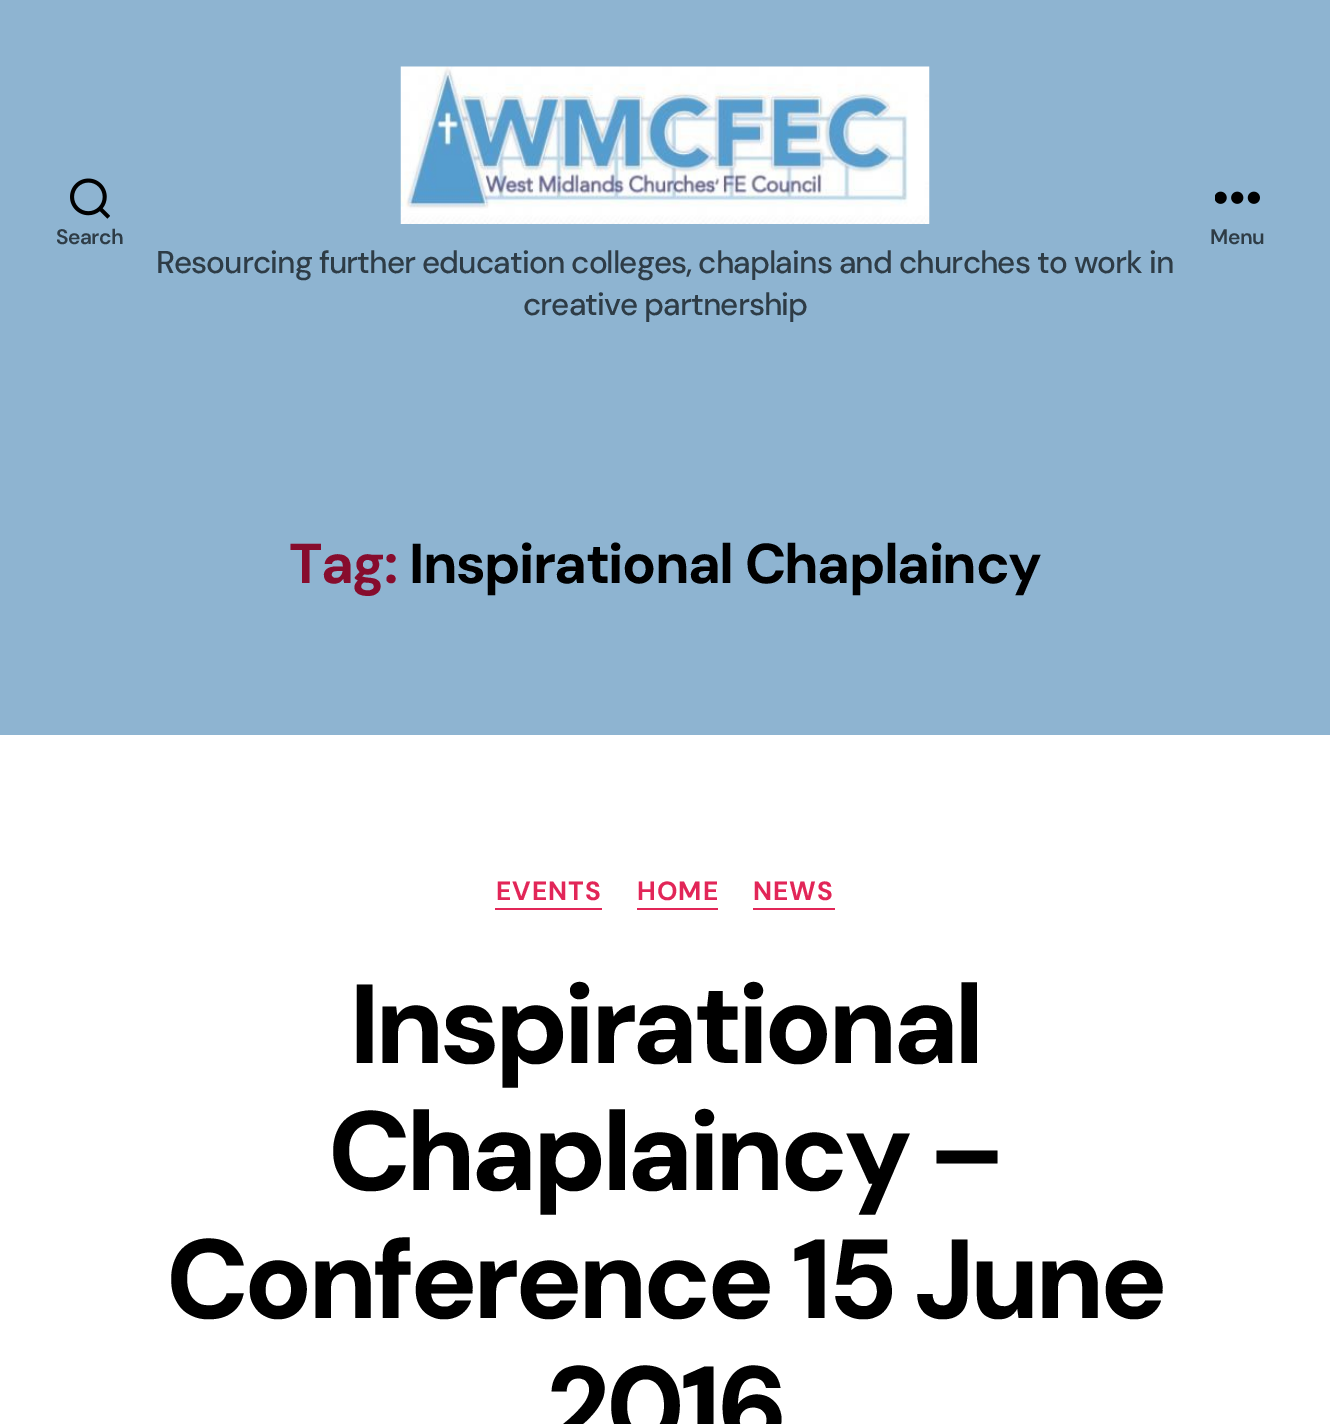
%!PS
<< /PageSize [1330 1424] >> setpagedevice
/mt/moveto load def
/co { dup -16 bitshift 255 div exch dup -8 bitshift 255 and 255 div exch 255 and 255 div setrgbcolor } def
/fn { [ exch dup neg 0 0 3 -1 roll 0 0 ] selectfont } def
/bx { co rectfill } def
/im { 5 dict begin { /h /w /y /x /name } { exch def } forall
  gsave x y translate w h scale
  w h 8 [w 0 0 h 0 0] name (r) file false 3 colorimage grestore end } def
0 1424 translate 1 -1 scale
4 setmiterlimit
0 0 1330 1424 16#FFFFFF bx
0 0 1330 735 16#8EB4D1 bx
(media/1.raw) 70 178 40 41 im
(media/2.raw) 1215 191 45 13 im
(media/3.raw) 400 66 530 158 im
495 908 107 2 16#E22658 bx
637 908 81 2 16#E22658 bx
753 908 82 2 16#E22658 bx
/DMSans-SemiBold 21 fn
16#2E3C46 co
56 244 mt -.5 0 (Search) ashow
1210 244 mt -.5 0 (Menu) ashow
/DMSans-Medium 31.5 fn
156 273 mt -.98 0 (Resourcing further education colleges, chaplains and churches to work in) ashow
523 315 mt -.98 0 (creative partnership) ashow
/DMSans-Bold 56 fn
16#870C2D co
289 583 mt -1.5 0 (Tag:) ashow
16#000000 co
409 583 mt -1.5 0 (Inspirational Chaplaincy) ashow
/DMSans-Bold 26.25 fn
16#E22658 co
496 900 mt 1 0 (EVENTS) ashow
637 900 mt 1 0 (HOME) ashow
753 900 mt 1 0 (NEWS) ashow
/DMSans-ExtraBold 112 fn
16#000000 co
349 1063 mt -4.7 0 (Inspirational) ashow
328 1190 mt -4.7 0 (Chaplaincy –) ashow
166 1318 mt -4.7 0 (Conference 15 June) ashow
546 1445 mt -4.7 0 (2016) ashow
showpage
